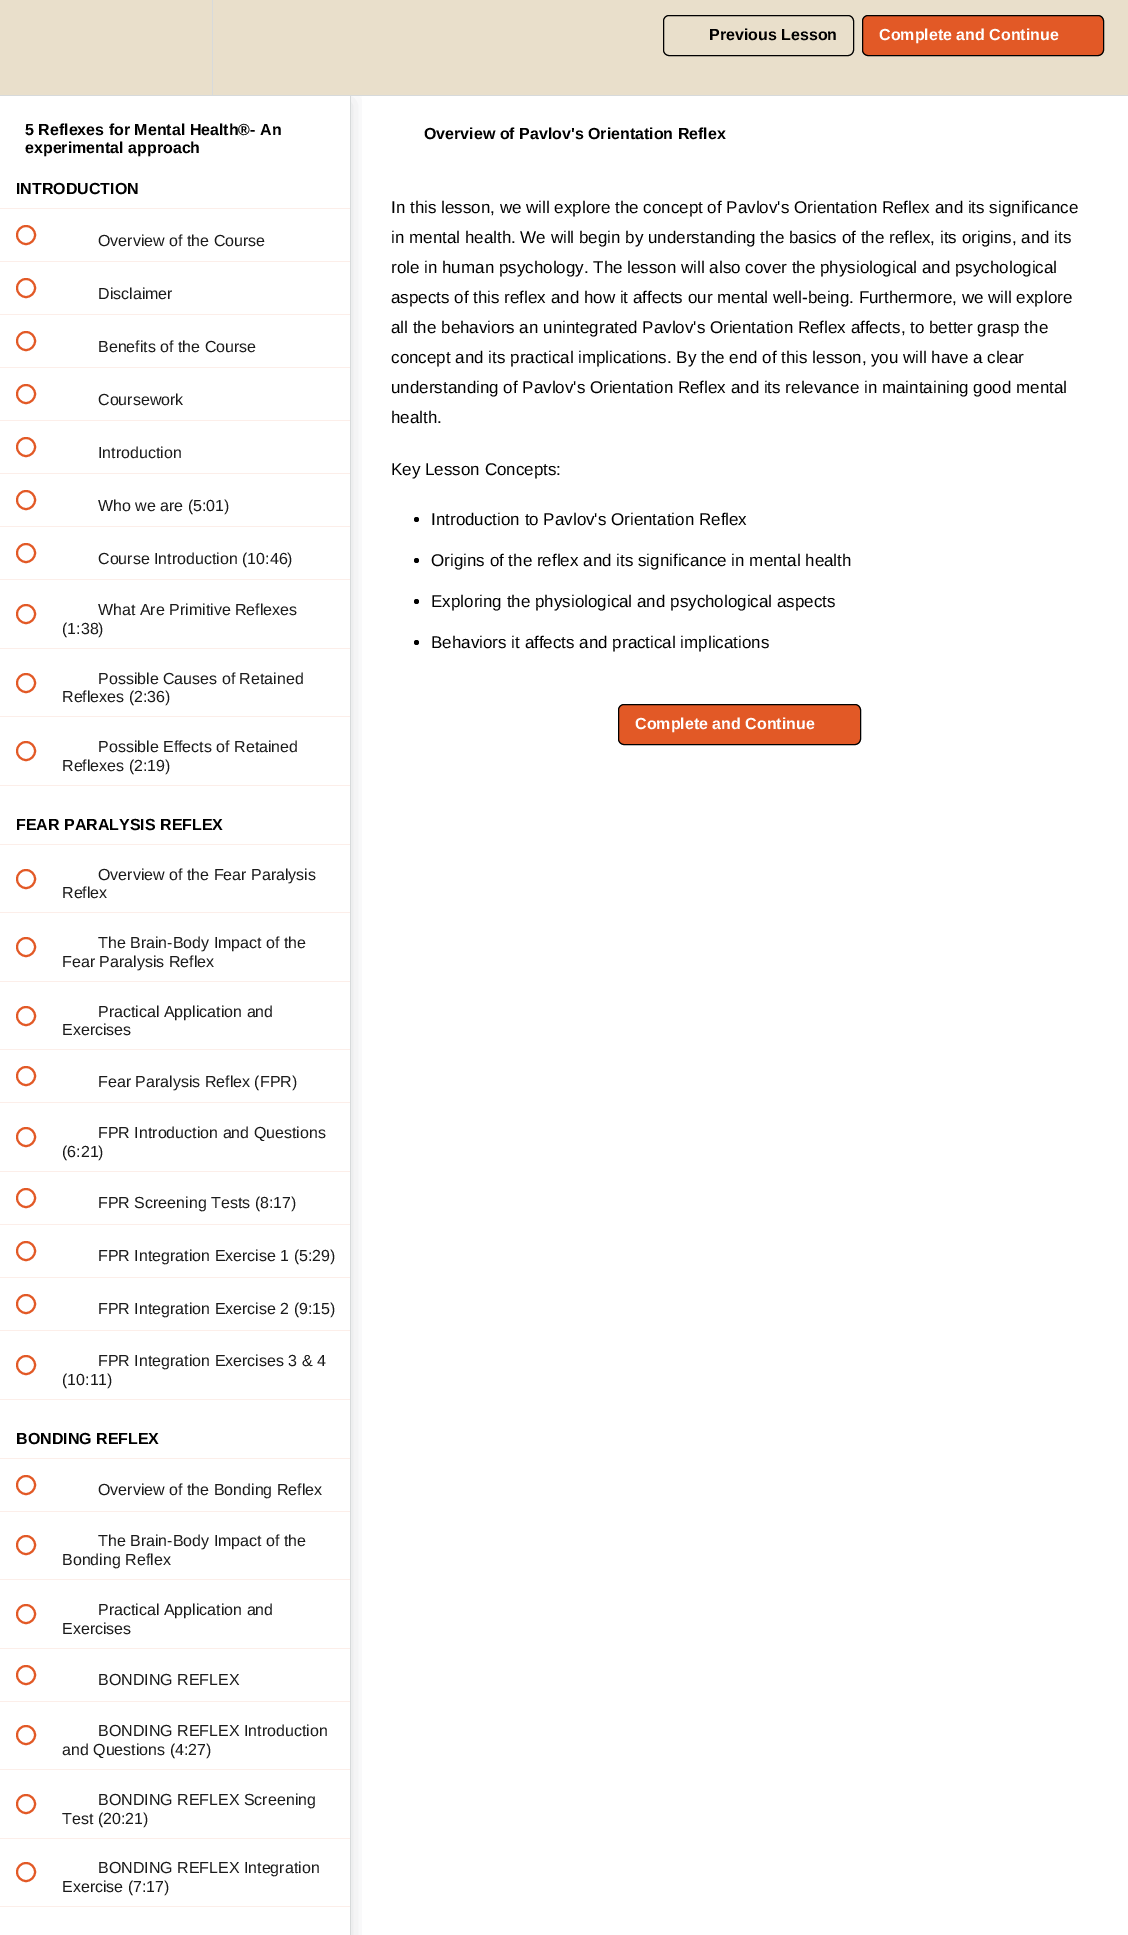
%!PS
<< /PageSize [1128 1935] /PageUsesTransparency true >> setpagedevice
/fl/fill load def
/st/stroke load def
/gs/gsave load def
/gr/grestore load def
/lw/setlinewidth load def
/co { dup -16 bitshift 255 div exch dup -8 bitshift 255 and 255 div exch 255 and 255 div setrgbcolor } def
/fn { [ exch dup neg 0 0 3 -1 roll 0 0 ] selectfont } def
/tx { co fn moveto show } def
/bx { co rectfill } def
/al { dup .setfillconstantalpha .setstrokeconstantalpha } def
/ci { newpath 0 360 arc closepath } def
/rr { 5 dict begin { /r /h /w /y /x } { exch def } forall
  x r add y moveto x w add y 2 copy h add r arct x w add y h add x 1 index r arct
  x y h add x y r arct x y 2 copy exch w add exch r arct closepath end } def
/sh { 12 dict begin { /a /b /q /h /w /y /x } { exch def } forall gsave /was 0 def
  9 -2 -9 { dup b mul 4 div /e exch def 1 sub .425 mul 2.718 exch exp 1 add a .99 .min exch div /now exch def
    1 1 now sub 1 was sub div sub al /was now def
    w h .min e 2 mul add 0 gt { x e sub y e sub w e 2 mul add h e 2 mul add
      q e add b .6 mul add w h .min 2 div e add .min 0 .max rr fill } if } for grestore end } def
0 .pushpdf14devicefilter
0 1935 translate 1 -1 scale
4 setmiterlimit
0 0 1128 1935 16#FFFFFF bx
gs
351 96 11 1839 rectclip
16#20272D co
0 102 351 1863 0 10 .15 sh
gr
0 0 1128 95 16#E9DFCB bx
0 95 1128 1 16#D7DADB bx
212 0 1 95 16#D7DADB bx
16#000000 co
663.5 15.5 190 40 5.5 rr st
16#E25926 co
862.5 15.5 241 40 5.5 rr gs fl gr
16#000000 co
st
350 96 1 1839 16#D7DADB bx
0 208 350 1 16#FCEEE9 bx
0 261 350 1 16#FCEEE9 bx
16#E25926 co
2 lw
26 235 9 ci st
0 314 350 1 16#FCEEE9 bx
16#E25926 co
26 288 9 ci st
0 367 350 1 16#FCEEE9 bx
16#E25926 co
26 341 9 ci st
0 420 350 1 16#FCEEE9 bx
16#E25926 co
26 394 9 ci st
0 473 350 1 16#FCEEE9 bx
16#E25926 co
26 447 9 ci st
0 526 350 1 16#FCEEE9 bx
16#E25926 co
26 500 9 ci st
0 579 350 1 16#FCEEE9 bx
16#E25926 co
26 553 9 ci st
0 648 350 1 16#FCEEE9 bx
16#E25926 co
26 614 9 ci st
0 716 350 1 16#FCEEE9 bx
16#E25926 co
26 683 9 ci st
0 785 350 1 16#FCEEE9 bx
16#E25926 co
26 751 9 ci st
0 844 350 1 16#FCEEE9 bx
0 912 350 1 16#FCEEE9 bx
16#E25926 co
26 879 9 ci st
0 981 350 1 16#FCEEE9 bx
16#E25926 co
26 947 9 ci st
0 1049 350 1 16#FCEEE9 bx
16#E25926 co
26 1016 9 ci st
0 1102 350 1 16#FCEEE9 bx
16#E25926 co
26 1076 9 ci st
0 1171 350 1 16#FCEEE9 bx
16#E25926 co
26 1137 9 ci st
0 1224 350 1 16#FCEEE9 bx
16#E25926 co
26 1198 9 ci st
0 1277 350 1 16#FCEEE9 bx
16#E25926 co
26 1251 9 ci st
0 1330 350 1 16#FCEEE9 bx
16#E25926 co
26 1304 9 ci st
0 1399 350 1 16#FCEEE9 bx
16#E25926 co
26 1365 9 ci st
0 1458 350 1 16#FCEEE9 bx
0 1511 350 1 16#FCEEE9 bx
16#E25926 co
26 1485 9 ci st
0 1579 350 1 16#FCEEE9 bx
16#E25926 co
26 1545 9 ci st
0 1648 350 1 16#FCEEE9 bx
16#E25926 co
26 1614 9 ci st
0 1701 350 1 16#FCEEE9 bx
16#E25926 co
26 1675 9 ci st
0 1769 350 1 16#FCEEE9 bx
16#E25926 co
26 1735 9 ci st
0 1838 350 1 16#FCEEE9 bx
16#E25926 co
26 1804 9 ci st
0 1906 350 1 16#FCEEE9 bx
16#E25926 co
26 1872 9 ci st
16#000000 co
416.5 519.5 2.5 ci fl
416.5 560.5 2.5 ci fl
416.5 601.5 2.5 ci fl
416.5 642.5 2.5 ci fl
16#E25926 co
618.5 704.5 242 40 5.5 rr gs fl gr
16#000000 co
1 lw
st
(Previous Lesson) 709 40 /LiberationSans-Bold 16 16#000000 tx
(Complete and Continue) 879 40 /LiberationSans-Bold 16 16#FFFFFF tx
(5 Reflexes for Mental Health®- An) 25 135 /LiberationSans-Bold 16 16#000000 tx
(experimental approach) 25 153 /LiberationSans-Bold 16 16#000000 tx
(INTRODUCTION) 16 194 /LiberationSans-Bold 16 16#000000 tx
(Overview of the Course) 98 246 /LiberationSans-Regular 16 16#1A1A1A tx
(Disclaimer) 98 299 /LiberationSans-Regular 16 16#1A1A1A tx
(Benefits of the Course) 98 352 /LiberationSans-Regular 16 16#1A1A1A tx
(Coursework) 98 405 /LiberationSans-Regular 16 16#1A1A1A tx
(Introduction) 98 458 /LiberationSans-Regular 16 16#1A1A1A tx
(Who we are \(5:01\)) 98 511 /LiberationSans-Regular 16 16#1A1A1A tx
(Course Introduction \(10:46\)) 98 564 /LiberationSans-Regular 16 16#1A1A1A tx
(What Are Primitive Reflexes) 98 615 /LiberationSans-Regular 16 16#1A1A1A tx
(\(1:38\)) 62 634 /LiberationSans-Regular 16 16#1A1A1A tx
(Possible Causes of Retained) 98 684 /LiberationSans-Regular 16 16#1A1A1A tx
(Reflexes \(2:36\)) 62 702 /LiberationSans-Regular 16 16#1A1A1A tx
(Possible Effects of Retained) 98 752 /LiberationSans-Regular 16 16#1A1A1A tx
(Reflexes \(2:19\)) 62 771 /LiberationSans-Regular 16 16#1A1A1A tx
(FEAR PARALYSIS REFLEX) 16 830 /LiberationSans-Bold 16 16#000000 tx
(Overview of the Fear Paralysis) 98 880 /LiberationSans-Regular 16 16#1A1A1A tx
(Reflex) 62 898 /LiberationSans-Regular 16 16#1A1A1A tx
(The Brain-Body Impact of the) 98 948 /LiberationSans-Regular 16 16#1A1A1A tx
(Fear Paralysis Reflex) 62 967 /LiberationSans-Regular 16 16#1A1A1A tx
(Practical Application and) 98 1017 /LiberationSans-Regular 16 16#1A1A1A tx
(Exercises) 62 1035 /LiberationSans-Regular 16 16#1A1A1A tx
(Fear Paralysis Reflex \(FPR\)) 98 1087 /LiberationSans-Regular 16 16#1A1A1A tx
(FPR Introduction and Questions) 98 1138 /LiberationSans-Regular 16 16#1A1A1A tx
(\(6:21\)) 62 1157 /LiberationSans-Regular 16 16#1A1A1A tx
(FPR Screening Tests \(8:17\)) 98 1208 /LiberationSans-Regular 16 16#1A1A1A tx
(FPR Integration Exercise 1 \(5:29\)) 98 1261 /LiberationSans-Regular 16 16#1A1A1A tx
(FPR Integration Exercise 2 \(9:15\)) 98 1314 /LiberationSans-Regular 16 16#1A1A1A tx
(FPR Integration Exercises 3 & 4) 98 1366 /LiberationSans-Regular 16 16#1A1A1A tx
(\(10:11\)) 62 1385 /LiberationSans-Regular 16 16#1A1A1A tx
(BONDING REFLEX) 16 1444 /LiberationSans-Bold 16 16#000000 tx
(Overview of the Bonding Reflex) 98 1495 /LiberationSans-Regular 16 16#1A1A1A tx
(The Brain-Body Impact of the) 98 1546 /LiberationSans-Regular 16 16#1A1A1A tx
(Bonding Reflex) 62 1565 /LiberationSans-Regular 16 16#1A1A1A tx
(Practical Application and) 98 1615 /LiberationSans-Regular 16 16#1A1A1A tx
(Exercises) 62 1634 /LiberationSans-Regular 16 16#1A1A1A tx
(BONDING REFLEX) 98 1685 /LiberationSans-Regular 16 16#1A1A1A tx
(BONDING REFLEX Introduction) 98 1736 /LiberationSans-Regular 16 16#1A1A1A tx
(and Questions \(4:27\)) 62 1755 /LiberationSans-Regular 16 16#1A1A1A tx
(BONDING REFLEX Screening) 98 1805 /LiberationSans-Regular 16 16#1A1A1A tx
(Test \(20:21\)) 62 1824 /LiberationSans-Regular 16 16#1A1A1A tx
(BONDING REFLEX Integration) 98 1873 /LiberationSans-Regular 16 16#1A1A1A tx
(Exercise \(7:17\)) 62 1892 /LiberationSans-Regular 16 16#1A1A1A tx
(Overview of Pavlov's Orientation Reflex) 424 139 /LiberationSans-Bold 16 16#000000 tx
(In this lesson, we will explore the concept of Pavlov's Orientation Reflex and its significance) 391 213 /LiberationSans-Regular 17 16#000000 tx
(in mental health. We will begin by understanding the basics of the reflex, its origins, and its) 391 243 /LiberationSans-Regular 17 16#000000 tx
(role in human psychology. The lesson will also cover the physiological and psychological) 391 273 /LiberationSans-Regular 17 16#000000 tx
(aspects of this reflex and how it affects our mental well-being. Furthermore, we will explore) 391 303 /LiberationSans-Regular 17 16#000000 tx
(all the behaviors an unintegrated Pavlov's Orientation Reflex affects, to better grasp the) 391 333 /LiberationSans-Regular 17 16#000000 tx
(concept and its practical implications. By the end of this lesson, you will have a clear) 391 363 /LiberationSans-Regular 17 16#000000 tx
(understanding of Pavlov's Orientation Reflex and its relevance in maintaining good mental) 391 393 /LiberationSans-Regular 17 16#000000 tx
(health.) 391 423 /LiberationSans-Regular 17 16#000000 tx
(Key Lesson Concepts:) 391 475 /LiberationSans-Regular 17 16#000000 tx
(Introduction to Pavlov's Orientation Reflex) 431 525 /LiberationSans-Regular 17 16#000000 tx
(Origins of the reflex and its significance in mental health) 431 566 /LiberationSans-Regular 17 16#000000 tx
(Exploring the physiological and psychological aspects) 431 607 /LiberationSans-Regular 17 16#000000 tx
(Behaviors it affects and practical implications) 431 648 /LiberationSans-Regular 17 16#000000 tx
(Complete and Continue) 635 729 /LiberationSans-Bold 16 16#FFFFFF tx
.poppdf14devicefilter showpage
